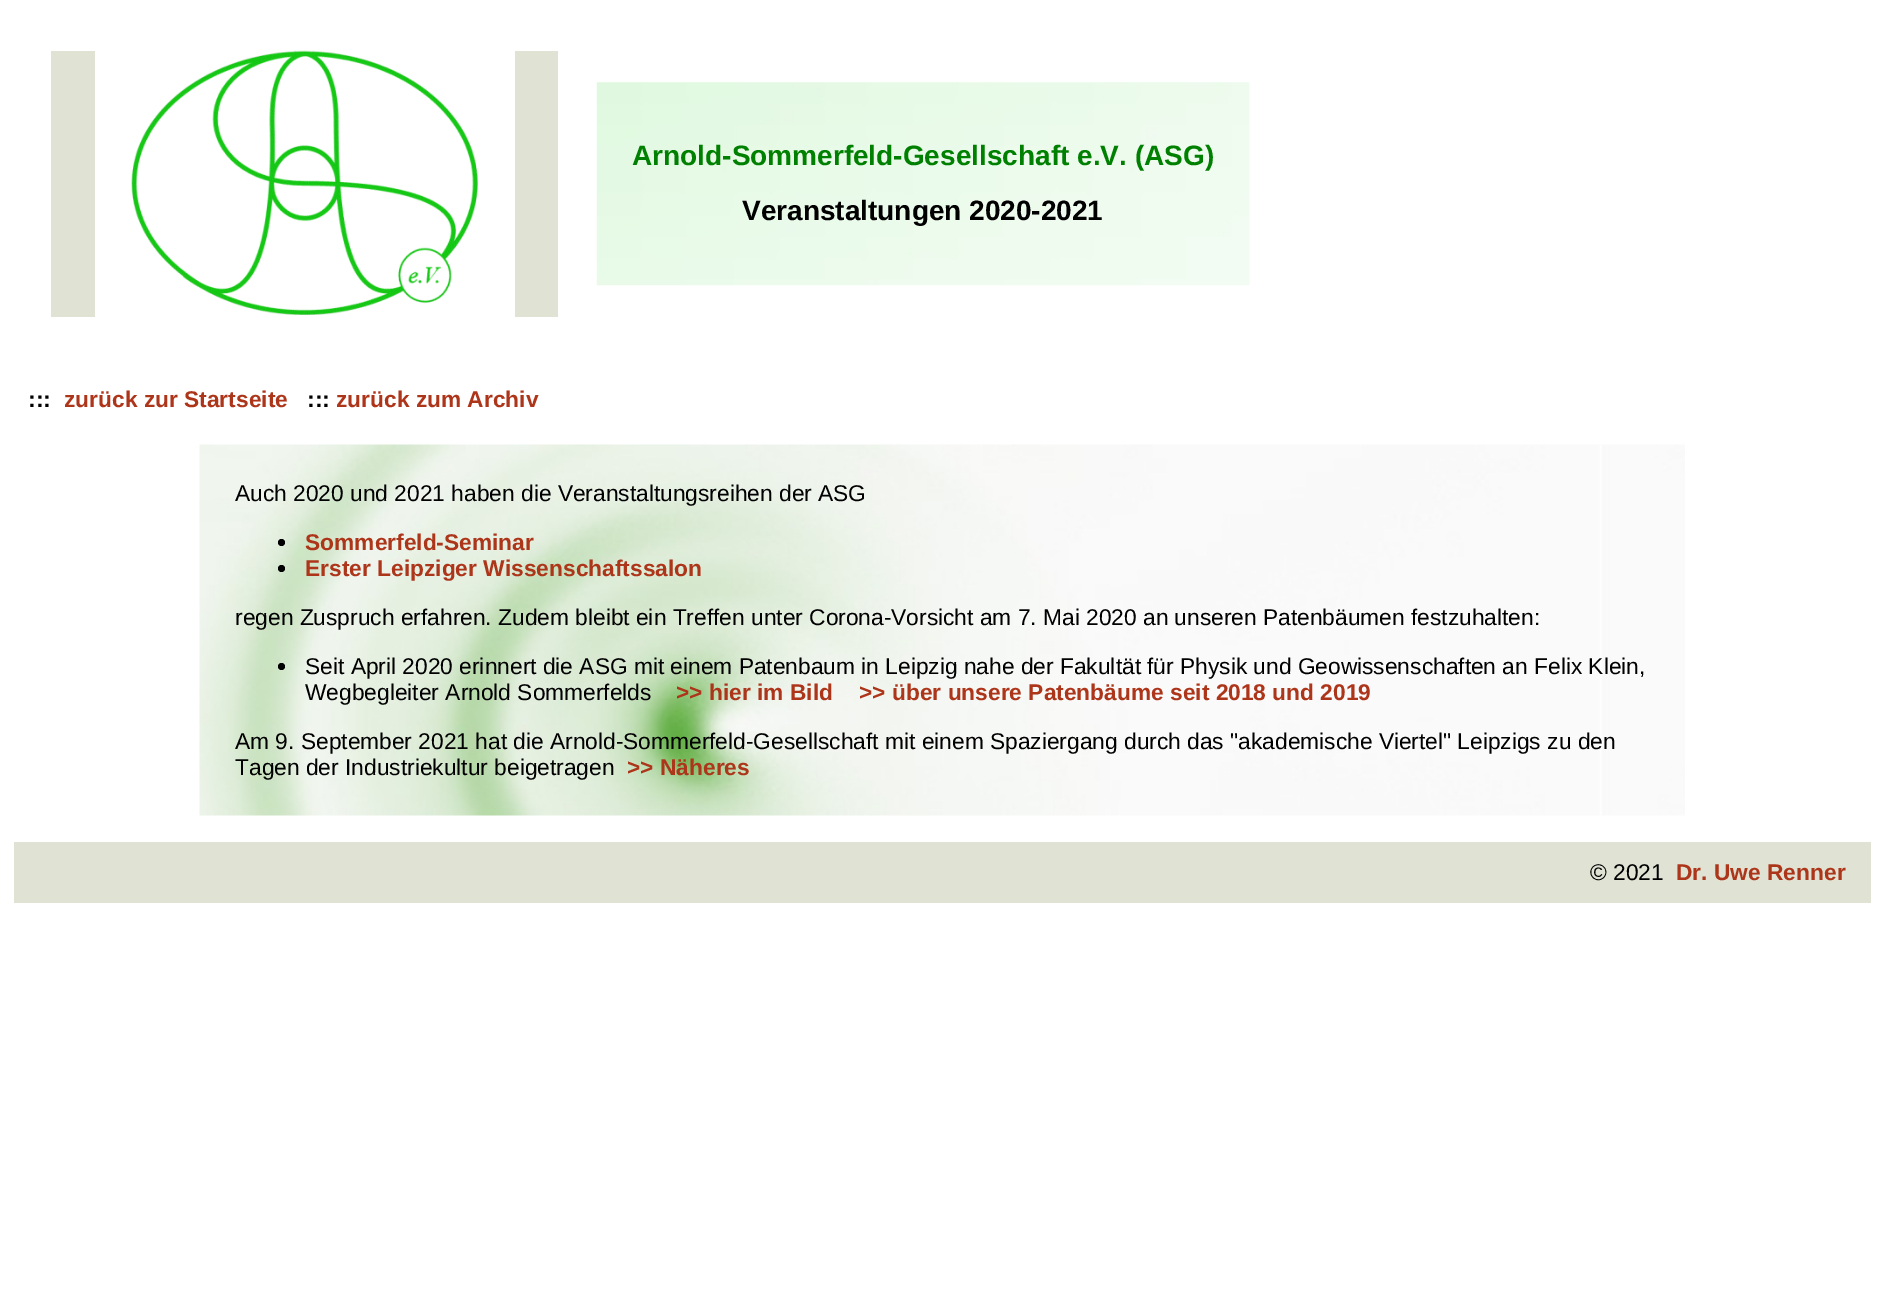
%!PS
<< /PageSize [1884 1294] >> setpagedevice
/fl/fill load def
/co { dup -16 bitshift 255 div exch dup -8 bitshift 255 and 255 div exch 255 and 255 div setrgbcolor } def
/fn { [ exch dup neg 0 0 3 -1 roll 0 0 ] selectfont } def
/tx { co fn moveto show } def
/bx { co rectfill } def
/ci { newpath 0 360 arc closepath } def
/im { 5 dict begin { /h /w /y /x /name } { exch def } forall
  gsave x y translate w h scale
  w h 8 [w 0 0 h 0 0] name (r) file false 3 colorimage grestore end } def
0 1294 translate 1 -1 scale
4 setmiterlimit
0 0 1884 1294 16#FFFFFF bx
51 51 44 266 16#E0E2D4 bx
(media/1.raw) 131 50 348 265 im
515 51 43 266 16#E0E2D4 bx
(media/2.raw) 596 82 654 204 im
(media/3.raw) 199 444 1486 372 im
16#000000 co
281.5 542.5 3.5 ci fl
281.5 568.5 3.5 ci fl
281.5 666.5 3.5 ci fl
14 842 1857 61 16#E0E2D4 bx
(Arnold-Sommerfeld-Gesellschaft e.V. \(ASG\)) 632 165 /LiberationSans-Bold 28 16#008000 tx
(Veranstaltungen 2020-2021) 742 220 /LiberationSans-Bold 28 16#000000 tx
(:::) 28 407 /LiberationSans-Bold 22.75 16#000000 tx
(zurück zur Startseite) 64 407 /LiberationSans-Bold 22.75 16#AD351A tx
(:::) 307 407 /LiberationSans-Bold 22.75 16#000000 tx
(zurück zum Archiv) 336 407 /LiberationSans-Bold 22.75 16#AD351A tx
(Auch 2020 und 2021 haben die Veranstaltungsreihen der ASG) 235 501 /LiberationSans-Regular 22.75 16#000000 tx
(Sommerfeld-Seminar) 305 550 /LiberationSans-Bold 22.75 16#AD351A tx
(Erster Leipziger Wissenschaftssalon) 305 576 /LiberationSans-Bold 22.75 16#AD351A tx
(regen Zuspruch erfahren. Zudem bleibt ein Treffen unter Corona-Vorsicht am 7. Mai 2020 an unseren Patenbäumen festzuhalten:) 235 625 /LiberationSans-Regular 22.75 16#000000 tx
(Seit April 2020 erinnert die ASG mit einem Patenbaum in Leipzig nahe der Fakultät für Physik und Geowissenschaften an Felix Klein,) 305 674 /LiberationSans-Regular 22.75 16#000000 tx
(Wegbegleiter Arnold Sommerfelds) 305 700 /LiberationSans-Regular 22.75 16#000000 tx
(>> hier im Bild) 676 700 /LiberationSans-Bold 22.75 16#AD351A tx
(>> über unsere Patenbäume seit 2018 und 2019) 859 700 /LiberationSans-Bold 22.75 16#AD351A tx
(Am 9. September 2021 hat die Arnold-Sommerfeld-Gesellschaft mit einem Spaziergang durch das "akademische Viertel" Leipzigs zu den) 235 749 /LiberationSans-Regular 22.75 16#000000 tx
(Tagen der Industriekultur beigetragen) 235 775 /LiberationSans-Regular 22.75 16#000000 tx
(>> Näheres) 627 775 /LiberationSans-Bold 22.75 16#AD351A tx
(© 2021) 1590 880 /LiberationSans-Regular 22.75 16#000000 tx
(Dr. Uwe Renner) 1676 880 /LiberationSans-Bold 22.75 16#AD351A tx
showpage
